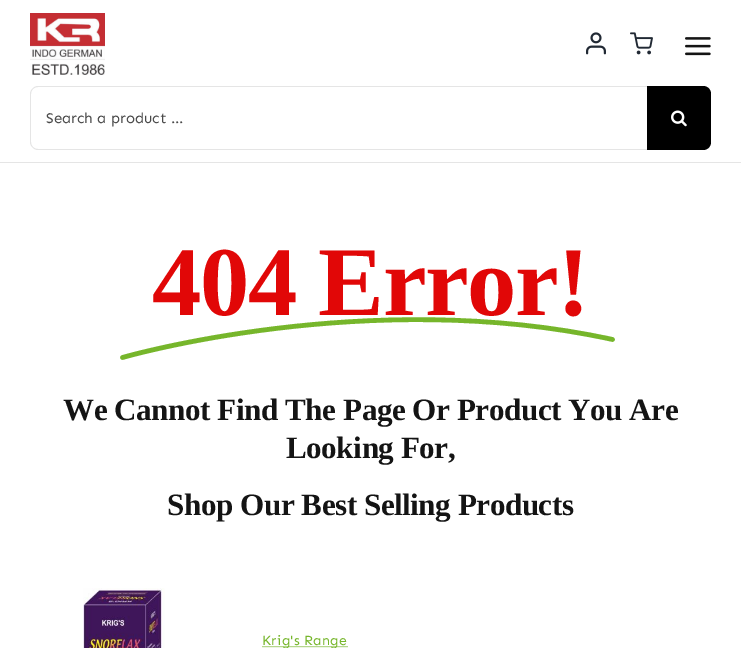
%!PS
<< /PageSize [741 648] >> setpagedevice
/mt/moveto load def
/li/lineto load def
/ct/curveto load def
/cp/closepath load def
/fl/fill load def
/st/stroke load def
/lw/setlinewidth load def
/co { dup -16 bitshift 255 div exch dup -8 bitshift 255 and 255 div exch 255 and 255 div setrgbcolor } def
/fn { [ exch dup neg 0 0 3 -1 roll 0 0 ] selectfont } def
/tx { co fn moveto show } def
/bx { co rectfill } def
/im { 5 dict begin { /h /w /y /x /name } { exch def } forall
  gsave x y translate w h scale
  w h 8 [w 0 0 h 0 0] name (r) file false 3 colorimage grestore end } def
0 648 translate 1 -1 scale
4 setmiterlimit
0 0 741 648 16#FFFFFF bx
0 162 741 1 16#E5E5E5 bx
(media/1.raw) 30 13 75 62 im
(media/2.raw) 586 32 20 23 im
(media/3.raw) 630 32 23 23 im
(media/4.raw) 685 37 26 19 im
38 86 mt 647 86 li 647 150 li 38 150 li 34 150 30 146 30 142 ct 30 94 li 30 90 34 86 38 86 ct cp 38 87 mt 647 87 li 647 149 li 38 149 li 34 149 31 146 31 142 ct 31 94 li 31 90 34 87 38 87 ct cp eofill
16#000000 co
647 86 mt 703 86 li 707.5 86 711 89.5 711 94 ct 711 142 li 711 146.5 707.5 150 703 150 ct 647 150 li cp fl
(media/5.raw) 671 110 16 17 im
16#76B62B co
4.6 lw
1 setlinecap
1 setlinejoin
122.5 357.5 mt 122.5 357.5 368.5 286 612.5 339.5 ct st
(media/6.raw) 83 588 82 60 im
1 lw
0 setlinecap
0 setlinejoin
[1 1] 0 setdash
262.5 646.5 mt 347.5 646.5 li st
(Search a product ...) 46 123 /Sen-Regular 15 16#494949 tx
/LiberationSerif-Bold 98.5 fn
16#E10707 co
152 315 mt -1.5 0 (404 Error!) ashow
/LiberationSerif-Bold 31.1 fn
16#141414 co
63 420 mt -.45 0 (We Cannot Find The Page Or Product You Are) ashow
286 458 mt -.45 0 (Looking For,) ashow
167 515 mt -.45 0 (Shop Our Best Selling Products) ashow
/Sen-Regular 14 fn
16#76B62B co
262 645 mt .25 0 (Krig's Range) ashow
showpage
